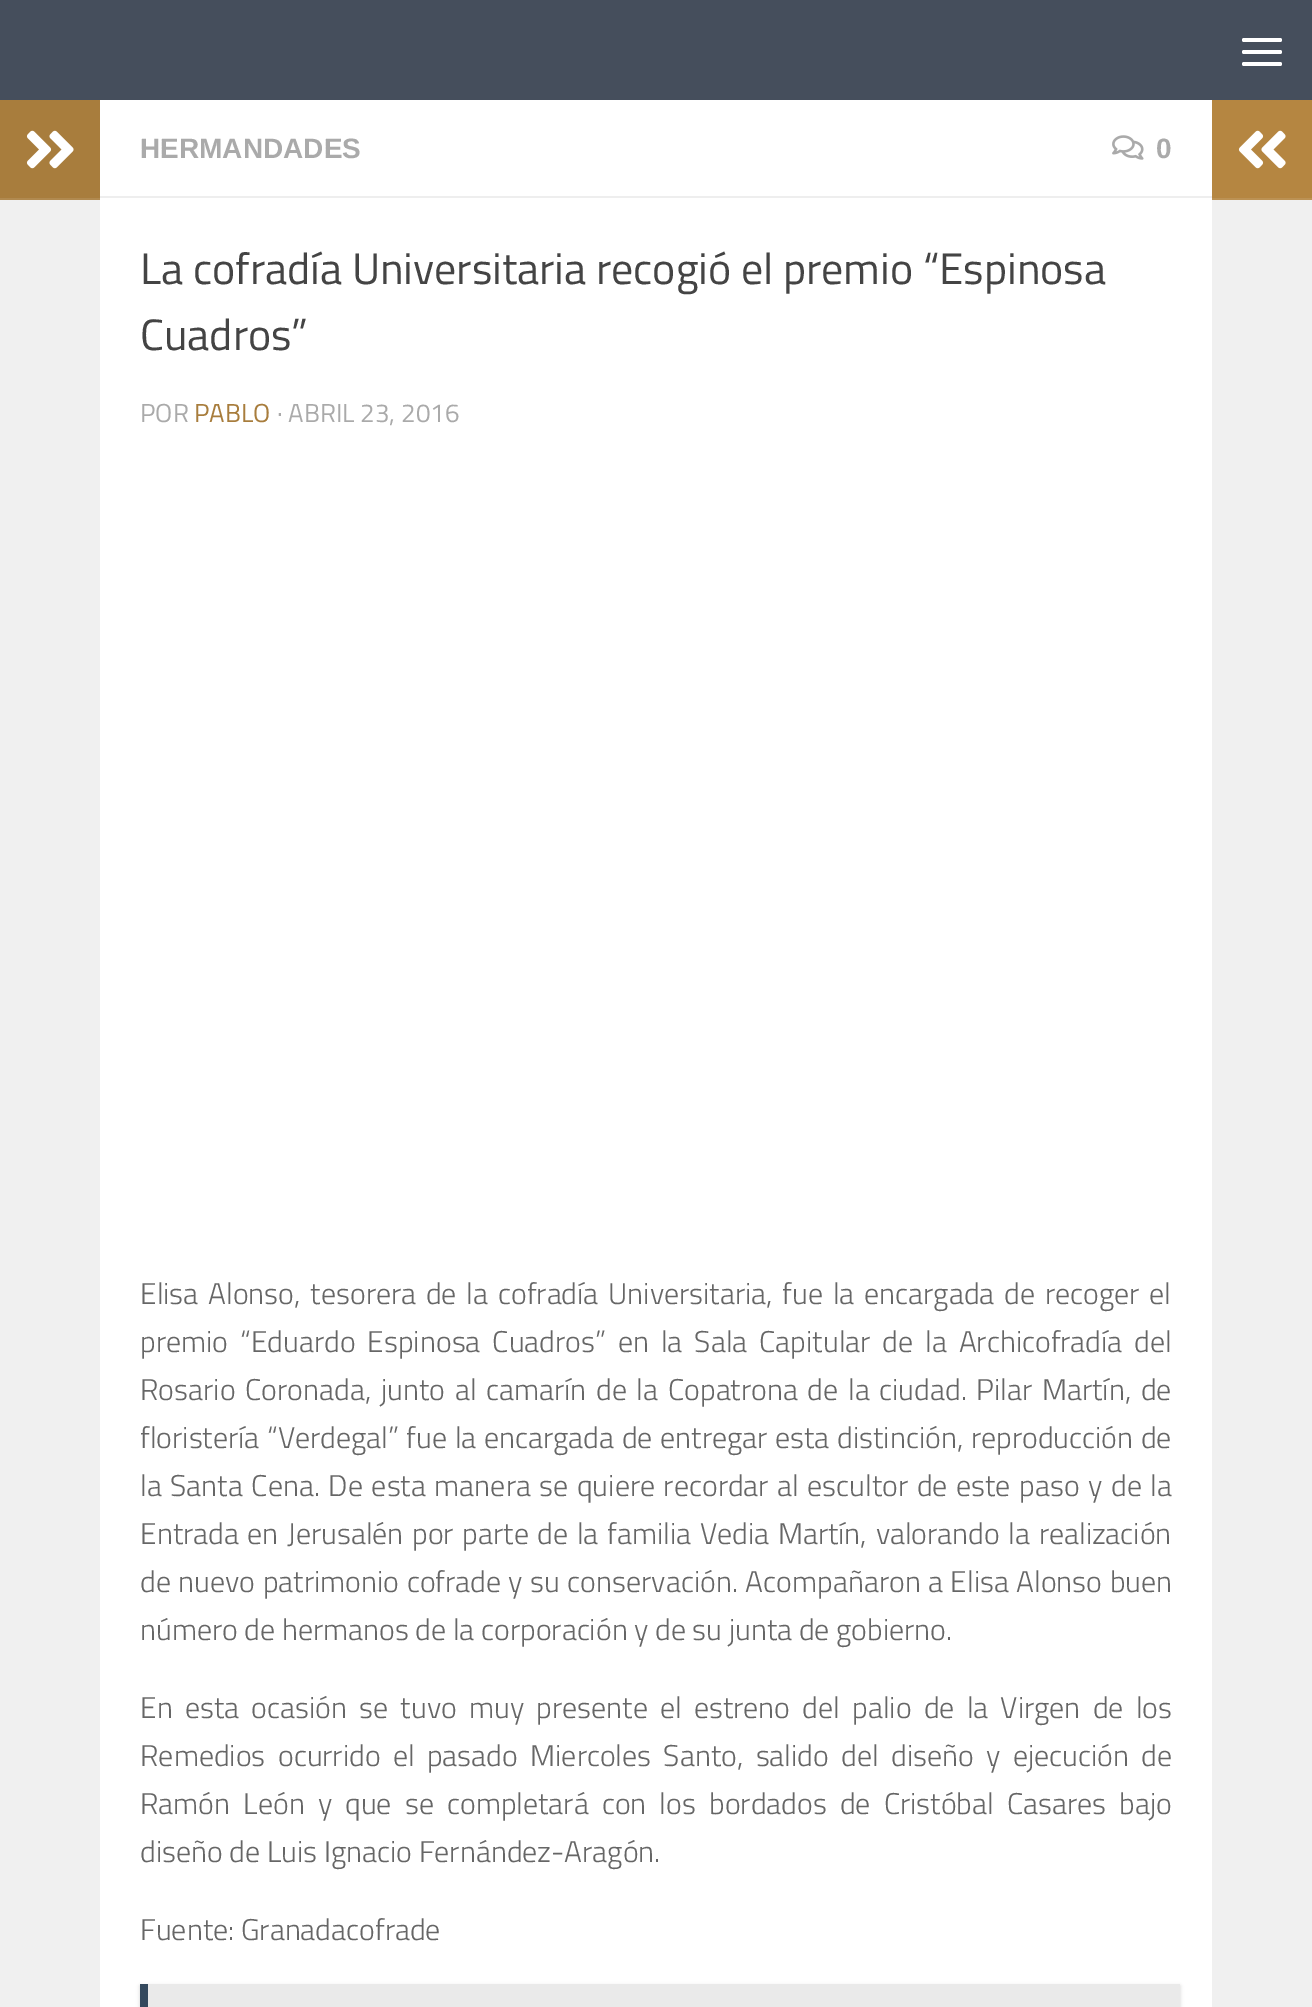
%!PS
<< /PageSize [1312 2007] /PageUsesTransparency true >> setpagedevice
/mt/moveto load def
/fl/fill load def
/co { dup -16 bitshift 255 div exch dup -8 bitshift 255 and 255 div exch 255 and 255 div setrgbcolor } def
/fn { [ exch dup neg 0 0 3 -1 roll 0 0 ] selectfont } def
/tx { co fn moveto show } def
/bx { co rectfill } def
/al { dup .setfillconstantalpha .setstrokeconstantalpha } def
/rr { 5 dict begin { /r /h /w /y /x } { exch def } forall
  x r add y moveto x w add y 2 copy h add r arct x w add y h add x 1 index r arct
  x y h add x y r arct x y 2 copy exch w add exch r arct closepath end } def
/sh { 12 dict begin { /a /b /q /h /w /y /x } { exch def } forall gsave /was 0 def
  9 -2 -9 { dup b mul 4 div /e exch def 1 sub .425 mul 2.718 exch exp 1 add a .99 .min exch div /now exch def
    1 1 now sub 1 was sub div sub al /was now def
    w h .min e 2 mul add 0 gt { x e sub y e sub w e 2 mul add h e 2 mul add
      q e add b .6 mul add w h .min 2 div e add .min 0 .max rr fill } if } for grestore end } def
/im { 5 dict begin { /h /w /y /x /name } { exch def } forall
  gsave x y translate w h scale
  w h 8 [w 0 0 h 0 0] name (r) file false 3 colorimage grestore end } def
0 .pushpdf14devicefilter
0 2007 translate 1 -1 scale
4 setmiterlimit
0 0 1312 2007 16#FFFFFF bx
0 0 1312 100 16#454E5C bx
16#FFFFFF co
1242 38 40 4 2 rr fl
1242 50 40 4 2 rr fl
1242 62 40 4 2 rr fl
0 200 100 1807 16#F0F0F0 bx
0 100 100 98 16#A87D3D bx
0 198 100 2 16#B18A50 bx
(media/1.raw) 26 130 48 39 im
100 196 1112 2 16#EEEEEE bx
(media/2.raw) 1112 135 32 25 im
16#000000 co
140 1986 1040 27 0 2 .17 sh
148 1984 1032 23 16#EAEAEA bx
140 1984 8 23 16#34495E bx
1212 100 100 98 16#B58641 bx
1212 198 100 2 16#BC9254 bx
(media/3.raw) 1238 130 48 39 im
1212 200 100 1807 16#F0F0F0 bx
(HERMANDADES) 140 158 /LiberationSans-Bold 28 16#AAAAAA tx
(0) 1156 158 /LiberationSans-Bold 28 16#AAAAAA tx
(La cofradía Universitaria recogió el premio “Espinosa) 140 284 /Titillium-Regular 44 16#444444 tx
(Cuadros”) 140 350 /Titillium-Regular 44 16#444444 tx
(POR) 140 422 /Titillium-Regular 26 16#AAAAAA tx
(PABLO) 194 422 /Titillium-Regular 26 16#A87D3D tx
(· ABRIL 23, 2016) 277 422 /Titillium-Regular 26 16#AAAAAA tx
/Titillium-Light 30 fn
16#666666 co
140 1304 mt 3.25 0 32 (Elisa Alonso, tesorera de la cofradía Universitaria, fue la encargada de recoger el) widthshow
140 1352 mt 5.4 0 32 (premio “Eduardo Espinosa Cuadros” en la Sala Capitular de la Archicofradía del) widthshow
140 1400 mt 3.1 0 32 (Rosario Coronada, junto al camarín de la Copatrona de la ciudad. Pilar Martín, de) widthshow
140 1448 mt 1.1 0 32 (floristería “Verdegal” fue la encargada de entregar esta distinción, reproducción de) widthshow
140 1496 mt 2 0 32 (la Santa Cena. De esta manera se quiere recordar al escultor de este paso y de la) widthshow
140 1544 mt 2.1 0 32 (Entrada en Jerusalén por parte de la familia Vedia Martín, valorando la realización) widthshow
140 1592 mt .9 0 32 (de nuevo patrimonio cofrade y su conservación. Acompañaron a Elisa Alonso buen) widthshow
(número de hermanos de la corporación y de su junta de gobierno.) 140 1640 /Titillium-Light 30 16#666666 tx
140 1718 mt 5.6 0 32 (En esta ocasión se tuvo muy presente el estreno del palio de la Virgen de los) widthshow
140 1766 mt 5.75 0 32 (Remedios ocurrido el pasado Miercoles Santo, salido del diseño y ejecución de) widthshow
140 1814 mt 6.5 0 32 (Ramón León y que se completará con los bordados de Cristóbal Casares bajo) widthshow
(diseño de Luis Ignacio Fernández-Aragón.) 140 1862 /Titillium-Light 30 16#666666 tx
(Fuente: Granadacofrade) 140 1940 /Titillium-Light 30 16#666666 tx
.poppdf14devicefilter showpage
